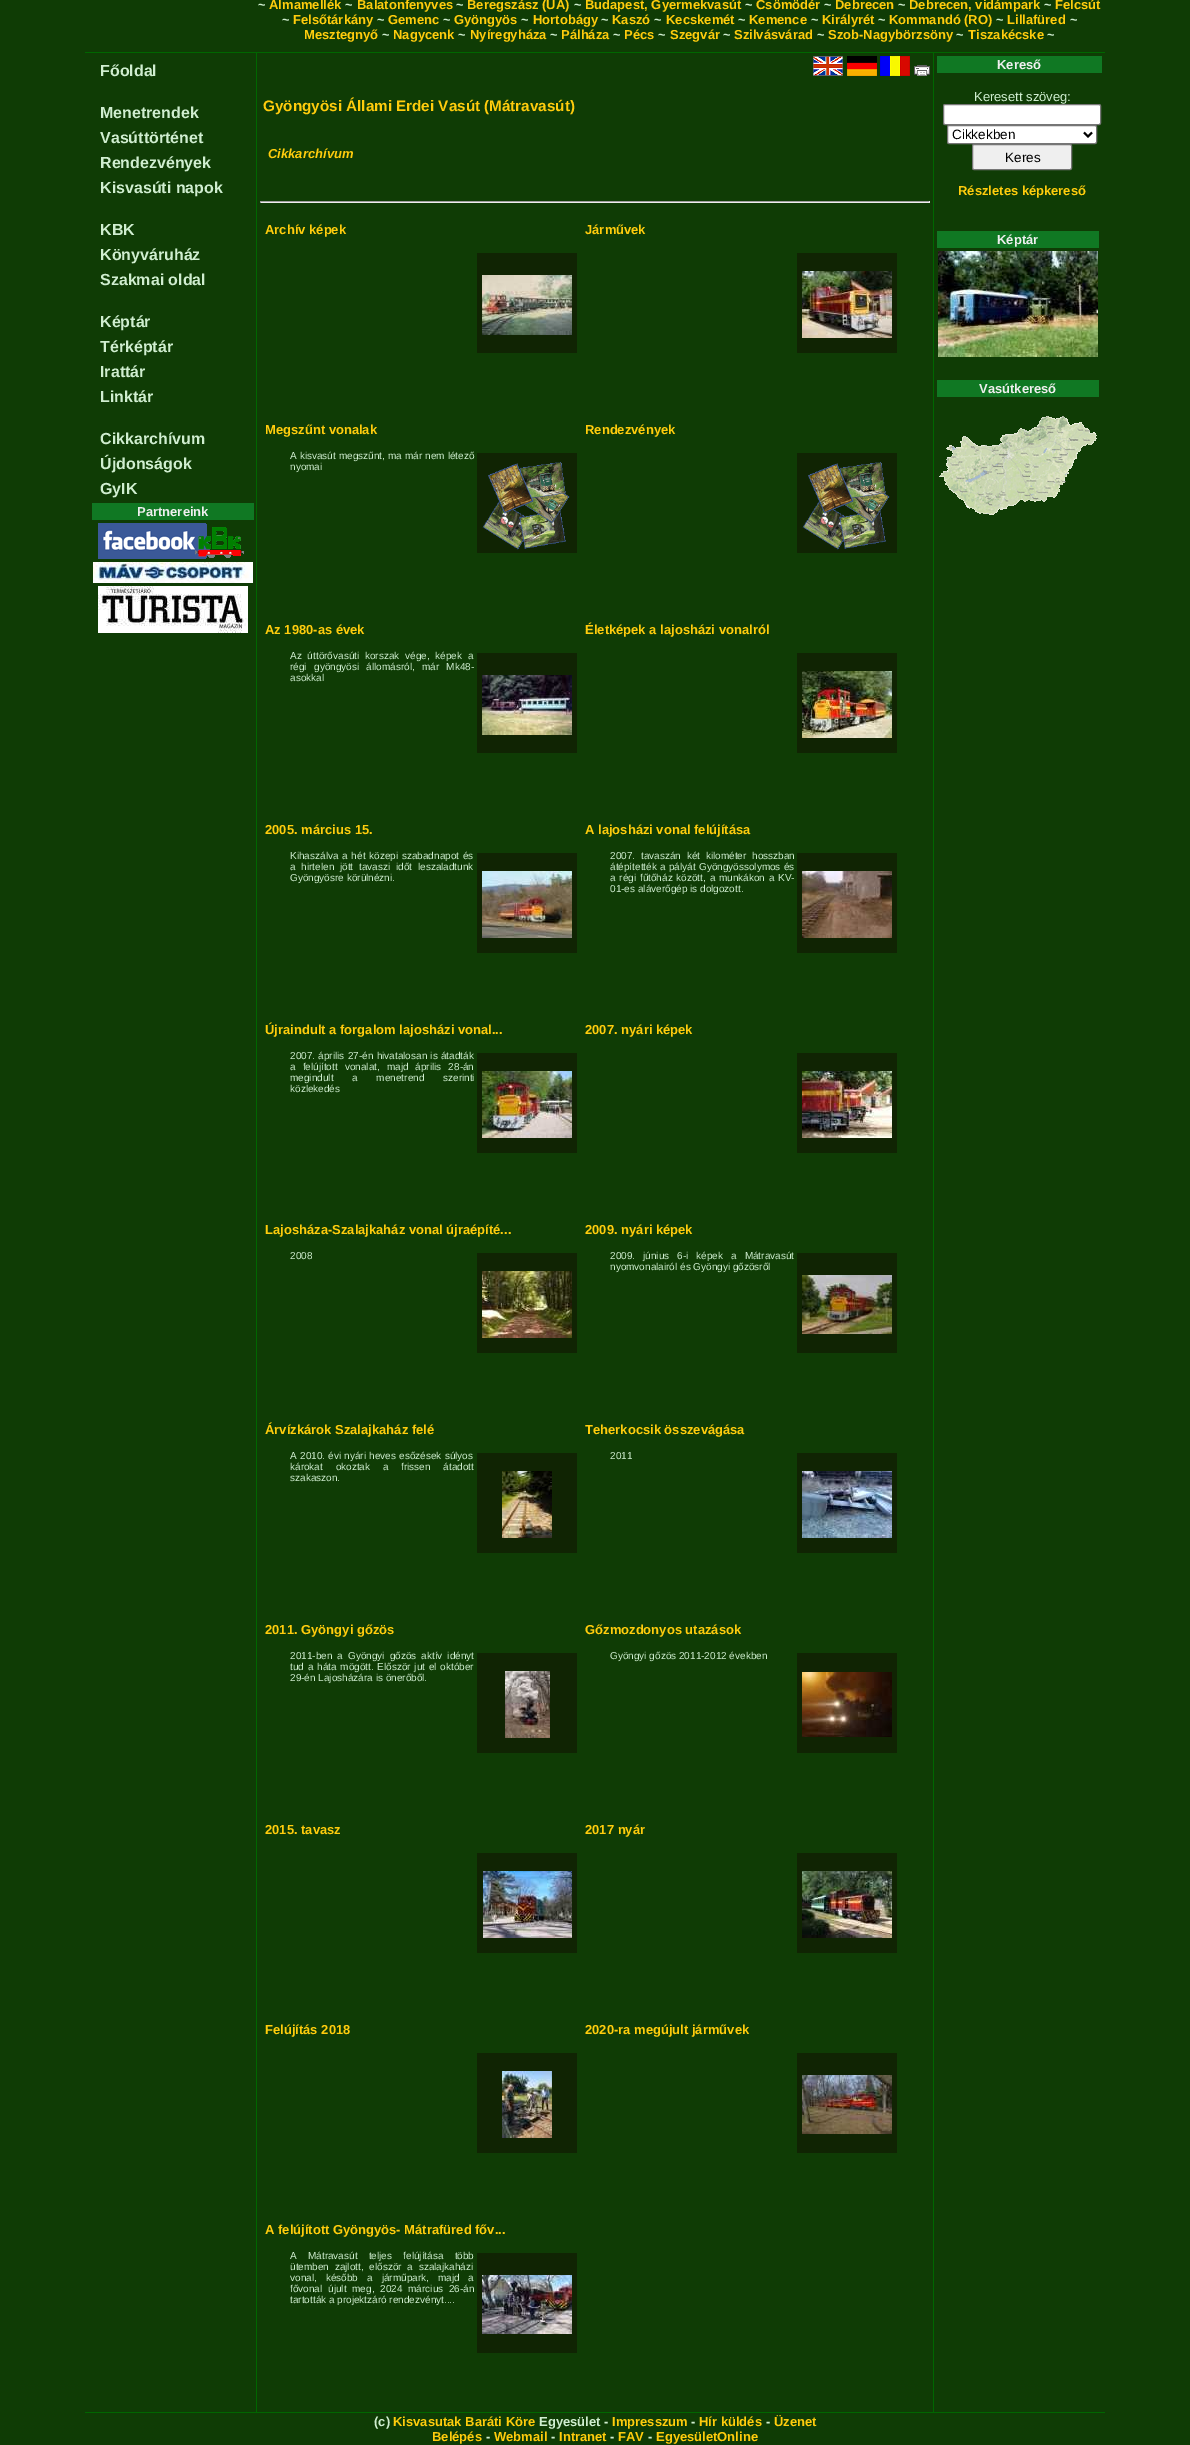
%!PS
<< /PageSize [1190 2445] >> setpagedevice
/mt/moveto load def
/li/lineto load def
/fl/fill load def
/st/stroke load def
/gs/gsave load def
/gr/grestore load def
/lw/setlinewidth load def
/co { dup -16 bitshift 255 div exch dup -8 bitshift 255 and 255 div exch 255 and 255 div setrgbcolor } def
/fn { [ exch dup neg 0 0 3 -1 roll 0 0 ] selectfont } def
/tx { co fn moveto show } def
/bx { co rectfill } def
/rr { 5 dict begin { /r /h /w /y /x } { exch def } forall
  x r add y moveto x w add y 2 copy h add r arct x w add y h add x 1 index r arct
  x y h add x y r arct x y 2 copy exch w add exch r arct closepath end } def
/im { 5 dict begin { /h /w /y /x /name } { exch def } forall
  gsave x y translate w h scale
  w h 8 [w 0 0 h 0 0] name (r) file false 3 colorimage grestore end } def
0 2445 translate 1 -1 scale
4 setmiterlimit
0 0 1190 2445 16#0F3C05 bx
85 52 1020 1 16#006600 bx
256 53 1 2359 16#006600 bx
92 503 162 17 16#107823 bx
(media/1.raw) 98 523 146 36 im
(media/2.raw) 93 562 160 21 im
(media/3.raw) 98 586 150 47 im
(media/4.raw) 813 56 30 20 im
(media/5.raw) 847 56 30 20 im
(media/6.raw) 880 56 30 20 im
(media/7.raw) 914 65 16 11 im
260 201 670 1 16#9F9F9F bx
929 201 1 2 16#EEEEEE bx
260 202 670 1 16#EEEEEE bx
260 201 1 2 16#9F9F9F bx
477 253 100 100 16#102403 bx
(media/8.raw) 482 275 90 60 im
797 253 100 100 16#102403 bx
(media/9.raw) 802 271 90 67 im
477 453 100 100 16#102403 bx
(media/10.raw) 482 462 88 88 im
797 453 100 100 16#102403 bx
(media/11.raw) 802 462 88 88 im
477 653 100 100 16#102403 bx
(media/12.raw) 482 675 90 60 im
797 653 100 100 16#102403 bx
(media/13.raw) 802 671 90 67 im
477 853 100 100 16#102403 bx
(media/14.raw) 482 871 90 67 im
797 853 100 100 16#102403 bx
(media/15.raw) 802 871 90 67 im
477 1053 100 100 16#102403 bx
(media/16.raw) 482 1071 90 67 im
797 1053 100 100 16#102403 bx
(media/17.raw) 802 1071 90 67 im
477 1253 100 100 16#102403 bx
(media/18.raw) 482 1271 90 67 im
797 1253 100 100 16#102403 bx
(media/19.raw) 802 1275 90 59 im
477 1453 100 100 16#102403 bx
(media/20.raw) 502 1471 50 67 im
797 1453 100 100 16#102403 bx
(media/21.raw) 802 1471 90 67 im
477 1653 100 100 16#102403 bx
(media/22.raw) 505 1671 45 67 im
797 1653 100 100 16#102403 bx
(media/23.raw) 802 1672 90 65 im
477 1853 100 100 16#102403 bx
(media/24.raw) 483 1871 89 67 im
797 1853 100 100 16#102403 bx
(media/25.raw) 802 1871 90 67 im
477 2053 100 100 16#102403 bx
(media/26.raw) 502 2071 50 67 im
797 2053 100 100 16#102403 bx
(media/27.raw) 802 2075 90 59 im
477 2253 100 100 16#102403 bx
(media/28.raw) 482 2275 90 59 im
933 53 1 2359 16#006600 bx
937 56 165 17 16#107823 bx
16#FFFFFF co
943.5 104.5 157 20 1.5 rr gs fl gr
16#767676 co
st
16#FFFFFF co
947.5 125.5 149 18 1.5 rr gs fl gr
16#767676 co
st
16#000000 co
2 lw
1084 132.5 mt 1088 136.5 li 1092 132.5 li st
16#EFEFEF co
972.5 144.5 99 25 1.5 rr gs fl gr
16#767676 co
1 lw
st
937 231 162 17 16#107823 bx
(media/29.raw) 938 251 160 106 im
937 380 162 17 16#107823 bx
(media/30.raw) 939 416 158 99 im
85 2412 1020 1 16#006600 bx
(~) 258 9 /LiberationSans-Bold 13 16#D0EED0 tx
(Almamellék) 269 9 /LiberationSans-Bold 13 16#FFCC0D tx
(~) 345 9 /LiberationSans-Bold 13 16#D0EED0 tx
(Balatonfenyves) 357 9 /LiberationSans-Bold 13 16#FFCC0D tx
(~) 456 9 /LiberationSans-Bold 13 16#D0EED0 tx
(Beregszász \(UA\)) 467 9 /LiberationSans-Bold 13 16#FFCC0D tx
(~) 574 9 /LiberationSans-Bold 13 16#D0EED0 tx
(Budapest, Gyermekvasút) 585 9 /LiberationSans-Bold 13 16#FFCC0D tx
(~) 745 9 /LiberationSans-Bold 13 16#D0EED0 tx
(Csömödér) 756 9 /LiberationSans-Bold 13 16#FFCC0D tx
(~) 824 9 /LiberationSans-Bold 13 16#D0EED0 tx
(Debrecen) 835 9 /LiberationSans-Bold 13 16#FFCC0D tx
(~) 898 9 /LiberationSans-Bold 13 16#D0EED0 tx
(Debrecen, vidámpark) 909 9 /LiberationSans-Bold 13 16#FFCC0D tx
(~) 1044 9 /LiberationSans-Bold 13 16#D0EED0 tx
(Felcsút) 1055 9 /LiberationSans-Bold 13 16#FFCC0D tx
(~) 282 24 /LiberationSans-Bold 13 16#D0EED0 tx
(Felsőtárkány) 293 24 /LiberationSans-Bold 13 16#FFCC0D tx
(~) 377 24 /LiberationSans-Bold 13 16#D0EED0 tx
(Gemenc) 388 24 /LiberationSans-Bold 13 16#FFCC0D tx
(~) 443 24 /LiberationSans-Bold 13 16#D0EED0 tx
(Gyöngyös) 454 24 /LiberationSans-Bold 13 16#FFCC0D tx
(~) 521 24 /LiberationSans-Bold 13 16#D0EED0 tx
(Hortobágy) 533 24 /LiberationSans-Bold 13 16#FFCC0D tx
(~) 601 24 /LiberationSans-Bold 13 16#D0EED0 tx
(Kaszó) 612 24 /LiberationSans-Bold 13 16#FFCC0D tx
(~) 654 24 /LiberationSans-Bold 13 16#D0EED0 tx
(Kecskemét) 666 24 /LiberationSans-Bold 13 16#FFCC0D tx
(~) 738 24 /LiberationSans-Bold 13 16#D0EED0 tx
(Kemence) 749 24 /LiberationSans-Bold 13 16#FFCC0D tx
(~) 811 24 /LiberationSans-Bold 13 16#D0EED0 tx
(Királyrét) 822 24 /LiberationSans-Bold 13 16#FFCC0D tx
(~) 878 24 /LiberationSans-Bold 13 16#D0EED0 tx
(Kommandó \(RO\)) 889 24 /LiberationSans-Bold 13 16#FFCC0D tx
(~) 996 24 /LiberationSans-Bold 13 16#D0EED0 tx
(Lillafüred) 1007 24 /LiberationSans-Bold 13 16#FFCC0D tx
(~) 1070 24 /LiberationSans-Bold 13 16#D0EED0 tx
(Mesztegnyő) 304 39 /LiberationSans-Bold 13 16#FFCC0D tx
(~) 382 39 /LiberationSans-Bold 13 16#D0EED0 tx
(Nagycenk) 393 39 /LiberationSans-Bold 13 16#FFCC0D tx
(~) 458 39 /LiberationSans-Bold 13 16#D0EED0 tx
(Nyíregyháza) 470 39 /LiberationSans-Bold 13 16#FFCC0D tx
(~) 550 39 /LiberationSans-Bold 13 16#D0EED0 tx
(Pálháza) 561 39 /LiberationSans-Bold 13 16#FFCC0D tx
(~) 613 39 /LiberationSans-Bold 13 16#D0EED0 tx
(Pécs) 624 39 /LiberationSans-Bold 13 16#FFCC0D tx
(~) 658 39 /LiberationSans-Bold 13 16#D0EED0 tx
(Szegvár) 670 39 /LiberationSans-Bold 13 16#FFCC0D tx
(~) 723 39 /LiberationSans-Bold 13 16#D0EED0 tx
(Szilvásvárad) 734 39 /LiberationSans-Bold 13 16#FFCC0D tx
(~) 817 39 /LiberationSans-Bold 13 16#D0EED0 tx
(Szob-Nagybörzsöny) 828 39 /LiberationSans-Bold 13 16#FFCC0D tx
(~) 956 39 /LiberationSans-Bold 13 16#D0EED0 tx
(Tiszakécske) 968 39 /LiberationSans-Bold 13 16#FFCC0D tx
(~) 1047 39 /LiberationSans-Bold 13 16#D0EED0 tx
(Főoldal) 100 76 /LiberationSans-Bold 16 16#D0EED0 tx
(Menetrendek) 100 118 /LiberationSans-Bold 16 16#D0EED0 tx
(Vasúttörténet) 100 143 /LiberationSans-Bold 16 16#D0EED0 tx
(Rendezvények) 100 168 /LiberationSans-Bold 16 16#D0EED0 tx
(Kisvasúti napok) 100 193 /LiberationSans-Bold 16 16#D0EED0 tx
(KBK) 100 235 /LiberationSans-Bold 16 16#D0EED0 tx
(Könyváruház) 100 260 /LiberationSans-Bold 16 16#D0EED0 tx
(Szakmai oldal) 100 285 /LiberationSans-Bold 16 16#D0EED0 tx
(Képtár) 100 327 /LiberationSans-Bold 16 16#D0EED0 tx
(Térképtár) 100 352 /LiberationSans-Bold 16 16#D0EED0 tx
(Irattár) 100 377 /LiberationSans-Bold 16 16#D0EED0 tx
(Linktár) 100 402 /LiberationSans-Bold 16 16#D0EED0 tx
(Cikkarchívum) 100 444 /LiberationSans-Bold 16 16#D0EED0 tx
(Újdonságok) 100 469 /LiberationSans-Bold 16 16#D0EED0 tx
(GyIK) 100 494 /LiberationSans-Bold 16 16#D0EED0 tx
(Partnereink) 137 516 /LiberationSans-Bold 13 16#EFEFEF tx
(Gyöngyösi Állami Erdei Vasút \(Mátravasút\)) 263 111 /LiberationSans-Bold 15.25 16#FFCC0D tx
(Cikkarchívum) 268 158 /LiberationSans-BoldItalic 13 16#FFCC0D tx
(Archív képek) 265 234 /LiberationSans-Bold 13 16#FFCC0D tx
(Járművek) 585 234 /LiberationSans-Bold 13 16#FFCC0D tx
(Megszűnt vonalak) 265 434 /LiberationSans-Bold 13 16#FFCC0D tx
/LiberationSans-Regular 10 fn
16#D0EED0 co
290 459 mt .25 0 32 (A kisvasút megszűnt, ma már nem létező) widthshow
(nyomai) 290 470 /LiberationSans-Regular 10 16#D0EED0 tx
(Rendezvények) 585 434 /LiberationSans-Bold 13 16#FFCC0D tx
(Az 1980-as évek) 265 634 /LiberationSans-Bold 13 16#FFCC0D tx
/LiberationSans-Regular 10 fn
16#D0EED0 co
290 659 mt 3 0 32 (Az úttörővasúti korszak vége, képek a) widthshow
290 670 mt 4.5 0 32 (régi gyöngyösi állomásról, már Mk48-) widthshow
(asokkal) 290 681 /LiberationSans-Regular 10 16#D0EED0 tx
(Életképek a lajosházi vonalról) 585 634 /LiberationSans-Bold 13 16#FFCC0D tx
(2005. március 15.) 265 834 /LiberationSans-Bold 13 16#FFCC0D tx
/LiberationSans-Regular 10 fn
16#D0EED0 co
290 859 mt 1 0 32 (Kihaszálva a hét közepi szabadnapot és) widthshow
290 870 mt 3 0 32 (a hirtelen jött tavaszi időt leszaladtunk) widthshow
(Gyöngyösre körülnézni.) 290 881 /LiberationSans-Regular 10 16#D0EED0 tx
(A lajosházi vonal felújítása) 585 834 /LiberationSans-Bold 13 16#FFCC0D tx
/LiberationSans-Regular 10 fn
16#D0EED0 co
610 859 mt 3 0 32 (2007. tavaszán két kilométer hosszban) widthshow
610 870 mt .5 0 32 (átépítették a pályát Gyöngyössolymos és) widthshow
610 881 mt 1 0 32 (a régi fűtőház között, a munkákon a KV-) widthshow
(01-es aláverőgép is dolgozott.) 610 892 /LiberationSans-Regular 10 16#D0EED0 tx
(Újraindult a forgalom lajosházi vonal...) 265 1034 /LiberationSans-Bold 13 16#FFCC0D tx
/LiberationSans-Regular 10 fn
16#D0EED0 co
290 1059 mt .5 0 32 (2007. április 27-én hivatalosan is átadták) widthshow
290 1070 mt 4.25 0 32 (a felújított vonalat, majd április 28-án) widthshow
290 1081 mt 16 0 32 (megindult a menetrend szerinti) widthshow
(közlekedés) 290 1092 /LiberationSans-Regular 10 16#D0EED0 tx
(2007. nyári képek) 585 1034 /LiberationSans-Bold 13 16#FFCC0D tx
(Lajosháza-Szalajkaház vonal újraépíté...) 265 1234 /LiberationSans-Bold 13 16#FFCC0D tx
(2008) 290 1259 /LiberationSans-Regular 10 16#D0EED0 tx
(2009. nyári képek) 585 1234 /LiberationSans-Bold 13 16#FFCC0D tx
/LiberationSans-Regular 10 fn
16#D0EED0 co
610 1259 mt 5.25 0 32 (2009. június 6-i képek a Mátravasút) widthshow
(nyomvonalairól és Gyöngyi gőzösről) 610 1270 /LiberationSans-Regular 10 16#D0EED0 tx
(Árvízkárok Szalajkaház felé) 265 1434 /LiberationSans-Bold 13 16#FFCC0D tx
/LiberationSans-Regular 10 fn
16#D0EED0 co
290 1459 mt .5 0 32 (A 2010. évi nyári heves esőzések súlyos) widthshow
290 1470 mt 10 0 32 (károkat okoztak a frissen átadott) widthshow
(szakaszon.) 290 1481 /LiberationSans-Regular 10 16#D0EED0 tx
(Teherkocsik összevágása) 585 1434 /LiberationSans-Bold 13 16#FFCC0D tx
(2011) 610 1459 /LiberationSans-Regular 10 16#D0EED0 tx
(2011. Gyöngyi gőzös) 265 1634 /LiberationSans-Bold 13 16#FFCC0D tx
/LiberationSans-Regular 10 fn
16#D0EED0 co
290 1659 mt 2.25 0 32 (2011-ben a Gyöngyi gőzös aktív idényt) widthshow
290 1670 mt 1 0 32 (tud a háta mögött. Először jut el október) widthshow
(29-én Lajosházára is önerőből.) 290 1681 /LiberationSans-Regular 10 16#D0EED0 tx
(Gőzmozdonyos utazások) 585 1634 /LiberationSans-Bold 13 16#FFCC0D tx
(Gyöngyi gőzös 2011-2012 években) 610 1659 /LiberationSans-Regular 10 16#D0EED0 tx
(2015. tavasz) 265 1834 /LiberationSans-Bold 13 16#FFCC0D tx
(2017 nyár) 585 1834 /LiberationSans-Bold 13 16#FFCC0D tx
(Felújítás 2018) 265 2034 /LiberationSans-Bold 13 16#FFCC0D tx
(2020-ra megújult járművek) 585 2034 /LiberationSans-Bold 13 16#FFCC0D tx
(A felújított Gyöngyös- Mátrafüred főv...) 265 2234 /LiberationSans-Bold 13 16#FFCC0D tx
/LiberationSans-Regular 10 fn
16#D0EED0 co
290 2259 mt 8.5 0 32 (A Mátravasút teljes felújítása több) widthshow
290 2270 mt 3 0 32 (ütemben zajlott, először a szalajkaházi) widthshow
290 2281 mt 6.25 0 32 (vonal, később a járműpark, majd a) widthshow
290 2292 mt 3 0 32 (fővonal újult meg, 2024 március 26-án) widthshow
(tartották a projektzáró rendezvényt....) 290 2303 /LiberationSans-Regular 10 16#D0EED0 tx
(Kereső) 997 69 /LiberationSans-Bold 13 16#EFEFEF tx
(Keresett szöveg:) 974 101 /LiberationSans-Regular 13 16#D0EED0 tx
(Cikkekben) 952 139 /LiberationSans-Regular 13.5 16#000000 tx
(Keres) 1005 162 /LiberationSans-Regular 13.5 16#000000 tx
(Részletes képkereső) 958 195 /LiberationSans-Bold 13 16#FFCC0D tx
(Képtár) 997 244 /LiberationSans-Bold 13 16#EFEFEF tx
(Vasútkereső) 979 393 /LiberationSans-Bold 13 16#EFEFEF tx
(\(c\)) 374 2426 /LiberationSans-Bold 13 16#D0EED0 tx
(Kisvasutak Baráti Köre) 393 2426 /LiberationSans-Bold 13 16#FFCC0D tx
(Egyesület -) 539 2426 /LiberationSans-Bold 13 16#D0EED0 tx
(Impresszum) 612 2426 /LiberationSans-Bold 13 16#FFCC0D tx
(-) 691 2426 /LiberationSans-Bold 13 16#D0EED0 tx
(Hír küldés) 699 2426 /LiberationSans-Bold 13 16#FFCC0D tx
(-) 766 2426 /LiberationSans-Bold 13 16#D0EED0 tx
(Üzenet) 774 2426 /LiberationSans-Bold 13 16#FFCC0D tx
(Belépés) 432 2441 /LiberationSans-Bold 13 16#FFCC0D tx
(-) 486 2441 /LiberationSans-Bold 13 16#D0EED0 tx
(Webmail) 494 2441 /LiberationSans-Bold 13 16#FFCC0D tx
(-) 551 2441 /LiberationSans-Bold 13 16#D0EED0 tx
(Intranet) 559 2441 /LiberationSans-Bold 13 16#FFCC0D tx
(-) 610 2441 /LiberationSans-Bold 13 16#D0EED0 tx
(FAV) 618 2441 /LiberationSans-Bold 13 16#FFCC0D tx
(-) 648 2441 /LiberationSans-Bold 13 16#D0EED0 tx
(EgyesületOnline) 656 2441 /LiberationSans-Bold 13 16#FFCC0D tx
showpage
